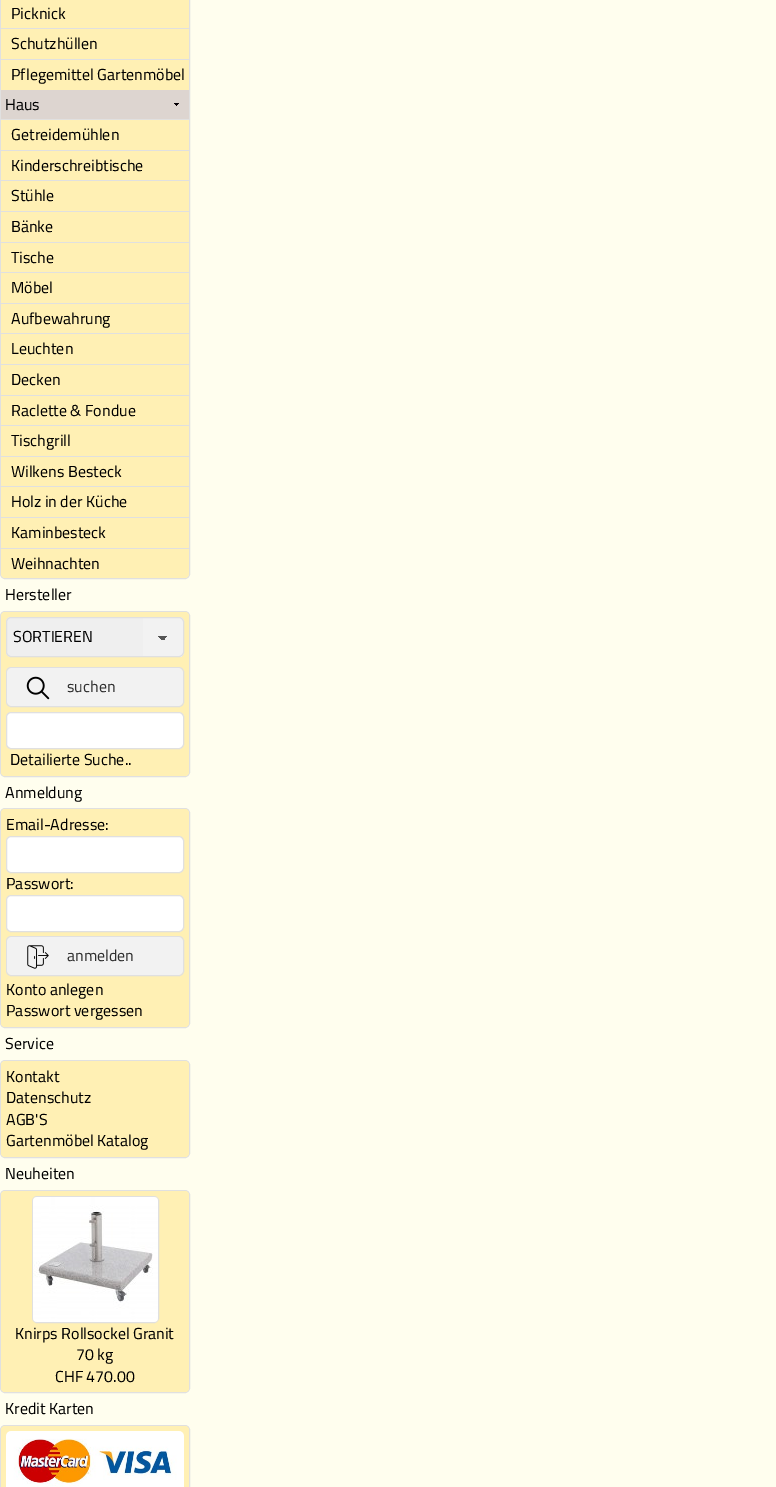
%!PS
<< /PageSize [776 1487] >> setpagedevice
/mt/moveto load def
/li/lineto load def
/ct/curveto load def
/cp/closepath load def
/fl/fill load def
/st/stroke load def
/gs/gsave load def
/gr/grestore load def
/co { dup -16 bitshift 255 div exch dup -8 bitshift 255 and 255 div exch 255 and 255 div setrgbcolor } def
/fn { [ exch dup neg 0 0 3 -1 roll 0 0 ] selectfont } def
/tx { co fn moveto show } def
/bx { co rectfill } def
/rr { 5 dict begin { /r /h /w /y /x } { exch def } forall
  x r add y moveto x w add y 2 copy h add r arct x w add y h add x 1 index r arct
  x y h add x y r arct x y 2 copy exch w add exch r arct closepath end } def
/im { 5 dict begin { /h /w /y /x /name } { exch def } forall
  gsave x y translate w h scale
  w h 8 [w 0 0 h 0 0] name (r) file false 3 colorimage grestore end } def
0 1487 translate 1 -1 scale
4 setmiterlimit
0 0 776 1487 16#FFFEEE bx
16#E0E0E0 co
.5 -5.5 189 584 4.5 rr st
1 0 188 28 16#FFF0B4 bx
1 29 188 30 16#FFF0B4 bx
1 28 188 1 16#E0E0E0 bx
1 60 188 30 16#FFF0B4 bx
1 59 188 1 16#E0E0E0 bx
1 90 188 29 16#DDD5D0 bx
(media/1.raw) 174 103 5 3 im
1 120 188 30 16#FFF0B4 bx
1 119 188 1 16#E0E0E0 bx
1 151 188 29 16#FFF0B4 bx
1 150 188 1 16#E0E0E0 bx
1 181 188 30 16#FFF0B4 bx
1 180 188 1 16#E0E0E0 bx
1 212 188 30 16#FFF0B4 bx
1 211 188 1 16#E0E0E0 bx
1 243 188 29 16#FFF0B4 bx
1 242 188 1 16#E0E0E0 bx
1 273 188 30 16#FFF0B4 bx
1 272 188 1 16#E0E0E0 bx
1 304 188 29 16#FFF0B4 bx
1 303 188 1 16#E0E0E0 bx
1 334 188 30 16#FFF0B4 bx
1 333 188 1 16#E0E0E0 bx
1 365 188 30 16#FFF0B4 bx
1 364 188 1 16#E0E0E0 bx
1 396 188 29 16#FFF0B4 bx
1 395 188 1 16#E0E0E0 bx
1 426 188 30 16#FFF0B4 bx
1 425 188 1 16#E0E0E0 bx
1 457 188 29 16#FFF0B4 bx
1 456 188 1 16#E0E0E0 bx
1 487 188 30 16#FFF0B4 bx
1 486 188 1 16#E0E0E0 bx
1 518 188 30 16#FFF0B4 bx
1 517 188 1 16#E0E0E0 bx
16#FFF0B4 co
1 548 mt 189 548 li 189 574 li 189 576 187 578 185 578 ct 5 578 li 3 578 1 576 1 574 ct cp fl
1 548 188 1 16#E0E0E0 bx
.5 611.5 189 165 4.5 rr st
16#FFF0B4 co
1 612 188 164 4 rr fl
16#EFEFEF co
6 617 178 40 5 rr fl
gs
6 617 178 40 5 rr clip newpath
143 618 40 39 16#F2F2F2 bx
gr
gs 163 636 mt 168 636 li 168 640 li 163 640 li cp clip newpath
<< /ShadingType 2 /ColorSpace /DeviceRGB /Coords [163 636 168 641] /Extend [true true] /Function << /FunctionType 3 /Domain [0 1] /Functions [<< /FunctionType 2 /Domain [0 1] /C0 [.333 .333 .333] /C1 [.333 .333 .333] /N 1 >> << /FunctionType 2 /Domain [0 1] /C0 [.949 .949 .949] /C1 [.949 .949 .949] /N 1 >>] /Bounds [.5] /Encode [0 1 0 1] >> >> shfill gr
gs 158 636 mt 163 636 li 163 640 li 158 640 li cp clip newpath
<< /ShadingType 2 /ColorSpace /DeviceRGB /Coords [158 641 163 636] /Extend [true true] /Function << /FunctionType 3 /Domain [0 1] /Functions [<< /FunctionType 2 /Domain [0 1] /C0 [.949 .949 .949] /C1 [.949 .949 .949] /N 1 >> << /FunctionType 2 /Domain [0 1] /C0 [.333 .333 .333] /C1 [.333 .333 .333] /N 1 >>] /Bounds [.5] /Encode [0 1 0 1] >> >> shfill gr
16#E0E0E0 co
6.5 617.5 177 39 4.5 rr st
6.5 667.5 177 39 4.5 rr st
gs
7 668 176 38 4 rr clip newpath
16#F2F2F2 co
7 668 176 38 5 rr fl
gr
(media/2.raw) 26 676 24 24 im
16#FFFFFF co
6.5 712.5 177 36 4.5 rr gs fl gr
16#E0E0E0 co
st
.5 808.5 189 219 4.5 rr st
16#FFF0B4 co
1 809 188 218 4 rr fl
16#FFFFFF co
6.5 836.5 177 36 4.5 rr gs fl gr
16#E0E0E0 co
st
16#FFFFFF co
6.5 895.5 177 36 4.5 rr gs fl gr
16#E0E0E0 co
st
6.5 936.5 177 39 4.5 rr st
gs
7 937 176 38 4 rr clip newpath
16#F2F2F2 co
7 937 176 38 5 rr fl
gr
(media/3.raw) 27 945 22 24 im
.5 1060.5 189 97 4.5 rr st
16#FFF0B4 co
1 1061 188 96 4 rr fl
16#E0E0E0 co
.5 1190.5 189 202 4.5 rr st
16#FFF0B4 co
1 1191 188 201 4 rr fl
16#E0E0E0 co
32.5 1196.5 126 126 4.5 rr st
(media/4.raw) 33 1197 125 125 im
.5 1425.5 189 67 4.5 rr st
16#FFF0B4 co
1 1426 188 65 4 rr fl
(media/5.raw) 6 1431 178 56 im
(Picknick) 11 19 /Cairo-Regular 16 16#000000 tx
(Schutzhüllen) 11 49 /Cairo-Regular 16 16#000000 tx
(Pflegemittel Gartenmöbel) 11 80 /Cairo-Regular 16 16#000000 tx
(Haus) 5 110 /Cairo-Regular 16 16#000000 tx
(Getreidemühlen) 11 140 /Cairo-Regular 16 16#000000 tx
(Kinderschreibtische) 11 171 /Cairo-Regular 16 16#000000 tx
(Stühle) 11 201 /Cairo-Regular 16 16#000000 tx
(Bänke) 11 232 /Cairo-Regular 16 16#000000 tx
(Tische) 11 263 /Cairo-Regular 16 16#000000 tx
(Möbel) 11 293 /Cairo-Regular 16 16#000000 tx
(Aufbewahrung) 11 324 /Cairo-Regular 16 16#000000 tx
(Leuchten) 11 354 /Cairo-Regular 16 16#000000 tx
(Decken) 11 385 /Cairo-Regular 16 16#000000 tx
(Raclette & Fondue) 11 416 /Cairo-Regular 16 16#000000 tx
(Tischgrill) 11 446 /Cairo-Regular 16 16#000000 tx
(Wilkens Besteck) 11 477 /Cairo-Regular 16 16#000000 tx
(Holz in der Küche) 11 507 /Cairo-Regular 16 16#000000 tx
(Kaminbesteck) 11 538 /Cairo-Regular 16 16#000000 tx
(Weihnachten) 11 569 /Cairo-Regular 16 16#000000 tx
(Hersteller) 5 600 /Cairo-Regular 16 16#000000 tx
(SORTIEREN) 13 642 /Cairo-Regular 16 16#000000 tx
(suchen) 67 692 /Cairo-Regular 16 16#303030 tx
(Detailierte Suche..) 10 765 /Cairo-Regular 16 16#000000 tx
(Anmeldung) 5 798 /Cairo-Regular 16 16#000000 tx
(Email-Adresse:) 6 830 /Cairo-Regular 16 16#000000 tx
(Passwort:) 6 889 /Cairo-Regular 16 16#000000 tx
(anmelden) 67 961 /Cairo-Regular 16 16#303030 tx
(Konto anlegen) 6 995 /Cairo-Regular 16 16#000000 tx
(Passwort vergessen) 6 1016 /Cairo-Regular 16 16#000000 tx
(Service) 5 1049 /Cairo-Regular 16 16#000000 tx
(Kontakt) 6 1082 /Cairo-Regular 16 16#000000 tx
(Datenschutz) 6 1103 /Cairo-Regular 16 16#000000 tx
(AGB'S) 6 1125 /Cairo-Regular 16 16#000000 tx
(Gartenmöbel Katalog) 6 1146 /Cairo-Regular 16 16#000000 tx
(Neuheiten) 5 1179 /Cairo-Regular 16 16#000000 tx
(Knirps Rollsockel Granit) 15 1339 /Cairo-Regular 16 16#000000 tx
(70 kg) 76 1360 /Cairo-Regular 16 16#000000 tx
(CHF 470.00) 55 1382 /Cairo-Regular 16 16#000000 tx
(Kredit Karten) 5 1414 /Cairo-Regular 16 16#000000 tx
showpage
